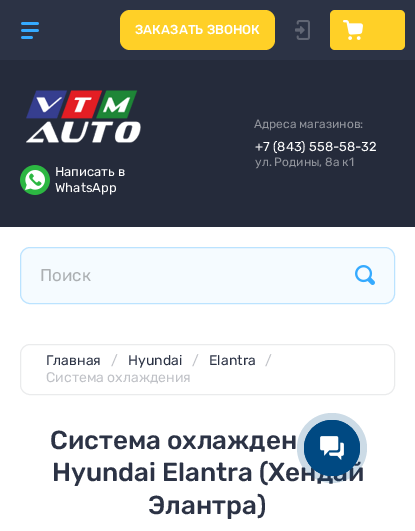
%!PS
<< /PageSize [415 531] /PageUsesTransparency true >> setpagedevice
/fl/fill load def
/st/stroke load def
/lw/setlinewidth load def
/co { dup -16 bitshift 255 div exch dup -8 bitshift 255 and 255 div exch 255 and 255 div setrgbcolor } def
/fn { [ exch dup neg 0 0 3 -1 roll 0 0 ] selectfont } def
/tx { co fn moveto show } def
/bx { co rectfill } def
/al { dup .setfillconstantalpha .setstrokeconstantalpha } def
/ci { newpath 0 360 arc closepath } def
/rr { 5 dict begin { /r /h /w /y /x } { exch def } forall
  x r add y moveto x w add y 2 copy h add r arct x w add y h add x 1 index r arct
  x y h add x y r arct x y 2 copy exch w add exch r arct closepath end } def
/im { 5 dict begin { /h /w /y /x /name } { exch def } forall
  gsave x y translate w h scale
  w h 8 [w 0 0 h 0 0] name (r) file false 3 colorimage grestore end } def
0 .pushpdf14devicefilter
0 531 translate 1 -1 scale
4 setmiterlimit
0 0 415 531 16#FFFFFF bx
0 0 415 60 16#2C3345 bx
(media/1.raw) 21 22 18 17 im
16#FFD027 co
120 10 155 40 10 rr fl
(media/2.raw) 295 20 15 20 im
330 10 75 40 5 rr fl
(media/3.raw) 343 20 20 20 im
0 60 415 167 16#252B3B bx
(media/4.raw) 26 90 115 53 im
(media/5.raw) 20 165 30 30 im
16#F5FBFF co
20 247 375 57 10 rr fl
0.3 al
16#35AAFF co
20.5 247.5 374 56 9.5 rr st
1 al
(media/6.raw) 355 265 20 20 im
16#EAEBEC co
20.5 344.5 374 50 9.5 rr st
(ЗАКАЗАТЬ ЗВОНОК) 135 34 /Rubik-Medium 13 16#FFFFFF tx
(Адреса магазинов:) 254 128 /Rubik-Regular 12 16#92959D tx
(+7 \(843\) 558-58-32) 255 151 /Rubik-Regular 13 16#FFFFFF tx
(ул. Родины, 8а к1) 255 166 /Rubik-Regular 12 16#92959D tx
(Написать в) 55 176 /Rubik-Regular 13 16#FFFFFF tx
(WhatsApp) 55 192 /Rubik-Regular 13 16#FFFFFF tx
(Поиск) 40 281 /Rubik-Regular 17 16#ACB0B3 tx
(Главная) 46 365 /Rubik-Regular 14 16#2C3345 tx
(/) 111 365 /Rubik-Regular 14 16#C0C2C7 tx
(Hyundai) 128 365 /Rubik-Regular 14 16#2C3345 tx
(/) 192 365 /Rubik-Regular 14 16#C0C2C7 tx
(Elantra) 209 365 /Rubik-Regular 14 16#2C3345 tx
(/) 265 365 /Rubik-Regular 14 16#C0C2C7 tx
(Система охлаждения) 46 382 /Rubik-Regular 14 16#C0C2C7 tx
(Система охлажден) 50 449 /Rubik-Medium 26 16#2C3345 tx
(Hyundai Elantra \(Хендай) 52 481 /Rubik-Medium 26 16#2C3345 tx
(Элантра\)) 148 514 /Rubik-Medium 26 16#2C3345 tx
0.2 al
16#004982 co
332 448 35 ci fl
1 al
.8 lw
332 448 27.6 ci st
332 448 28 ci fl
(media/7.raw) 320 436 24 24 im
.poppdf14devicefilter showpage
